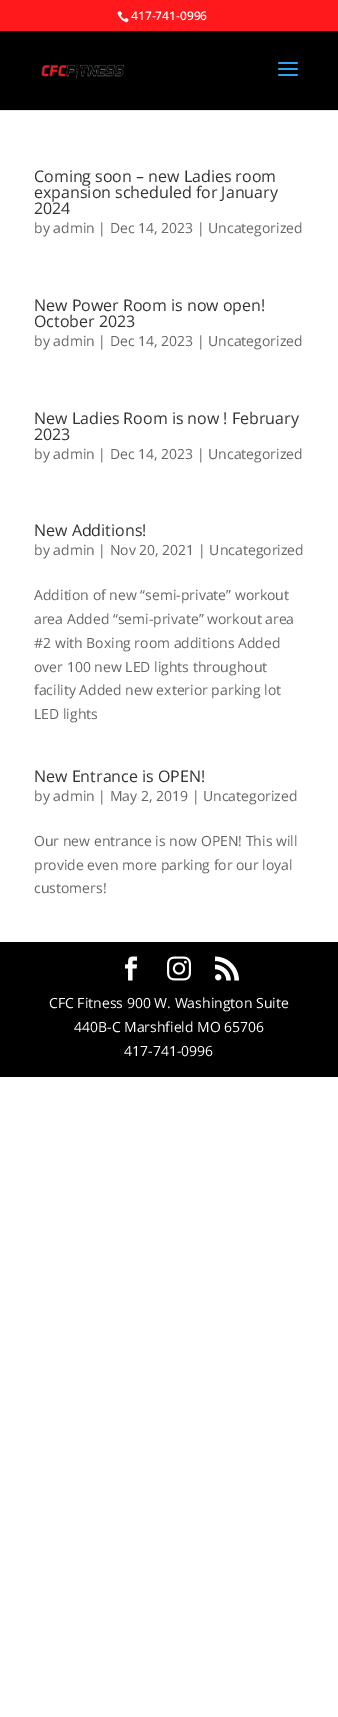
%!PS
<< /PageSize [338 1717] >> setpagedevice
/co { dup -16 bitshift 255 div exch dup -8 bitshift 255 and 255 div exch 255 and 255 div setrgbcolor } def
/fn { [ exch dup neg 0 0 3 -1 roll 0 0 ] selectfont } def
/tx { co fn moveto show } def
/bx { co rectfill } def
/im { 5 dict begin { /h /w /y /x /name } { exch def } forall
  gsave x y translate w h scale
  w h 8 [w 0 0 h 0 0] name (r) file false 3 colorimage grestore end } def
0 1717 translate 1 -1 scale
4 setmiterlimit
0 0 338 1717 16#FFFFFF bx
0 0 338 31 16#FF191C bx
(media/1.raw) 117 11 12 12 im
0 110 338 1 16#E6E6E6 bx
0 31 338 79 16#000000 bx
(media/2.raw) 41 63 84 16 im
(media/3.raw) 278 62 20 14 im
0 942 338 135 16#000000 bx
(media/4.raw) 125 956 13 25 im
(media/5.raw) 167 956 24 25 im
(media/6.raw) 215 956 24 25 im
(417-741-0996) 131 20 /OpenSans-SemiBold 12 16#FFFFFF tx
(Coming soon – new Ladies room) 34 182 /OpenSans-Regular 16 16#333333 tx
(expansion scheduled for January) 34 198 /OpenSans-Regular 16 16#333333 tx
(2024) 34 214 /OpenSans-Regular 16 16#333333 tx
(by admin | Dec 14, 2023 | Uncategorized) 34 233 /OpenSans-Regular 14 16#666666 tx
(New Power Room is now open!) 34 311 /OpenSans-Regular 16 16#333333 tx
(October 2023) 34 327 /OpenSans-Regular 16 16#333333 tx
(by admin | Dec 14, 2023 | Uncategorized) 34 346 /OpenSans-Regular 14 16#666666 tx
(New Ladies Room is now ! February) 34 424 /OpenSans-Regular 16 16#333333 tx
(2023) 34 440 /OpenSans-Regular 16 16#333333 tx
(by admin | Dec 14, 2023 | Uncategorized) 34 459 /OpenSans-Regular 14 16#666666 tx
(New Additions!) 34 536 /OpenSans-Regular 16 16#333333 tx
(by admin | Nov 20, 2021 | Uncategorized) 34 555 /OpenSans-Regular 14 16#666666 tx
(Addition of new “semi-private” workout) 34 600 /OpenSans-Regular 14 16#666666 tx
(area Added “semi-private” workout area) 34 624 /OpenSans-Regular 14 16#666666 tx
(#2 with Boxing room additions Added) 34 648 /OpenSans-Regular 14 16#666666 tx
(over 100 new LED lights throughout) 34 672 /OpenSans-Regular 14 16#666666 tx
(facility Added new exterior parking lot) 34 695 /OpenSans-Regular 14 16#666666 tx
(LED lights) 34 719 /OpenSans-Regular 14 16#666666 tx
(New Entrance is OPEN!) 34 782 /OpenSans-Regular 16 16#333333 tx
(by admin | May 2, 2019 | Uncategorized) 34 801 /OpenSans-Regular 14 16#666666 tx
(Our new entrance is now OPEN! This will) 34 846 /OpenSans-Regular 14 16#666666 tx
(provide even more parking for our loyal) 34 870 /OpenSans-Regular 14 16#666666 tx
(customers!) 34 893 /OpenSans-Regular 14 16#666666 tx
(CFC Fitness 900 W. Washington Suite) 49 1008 /OpenSans-Regular 14 16#FFFFFF tx
(440B-C Marshfield MO 65706) 74 1032 /OpenSans-Regular 14 16#FFFFFF tx
(417-741-0996) 124 1056 /OpenSans-Regular 14 16#FFFFFF tx
showpage
